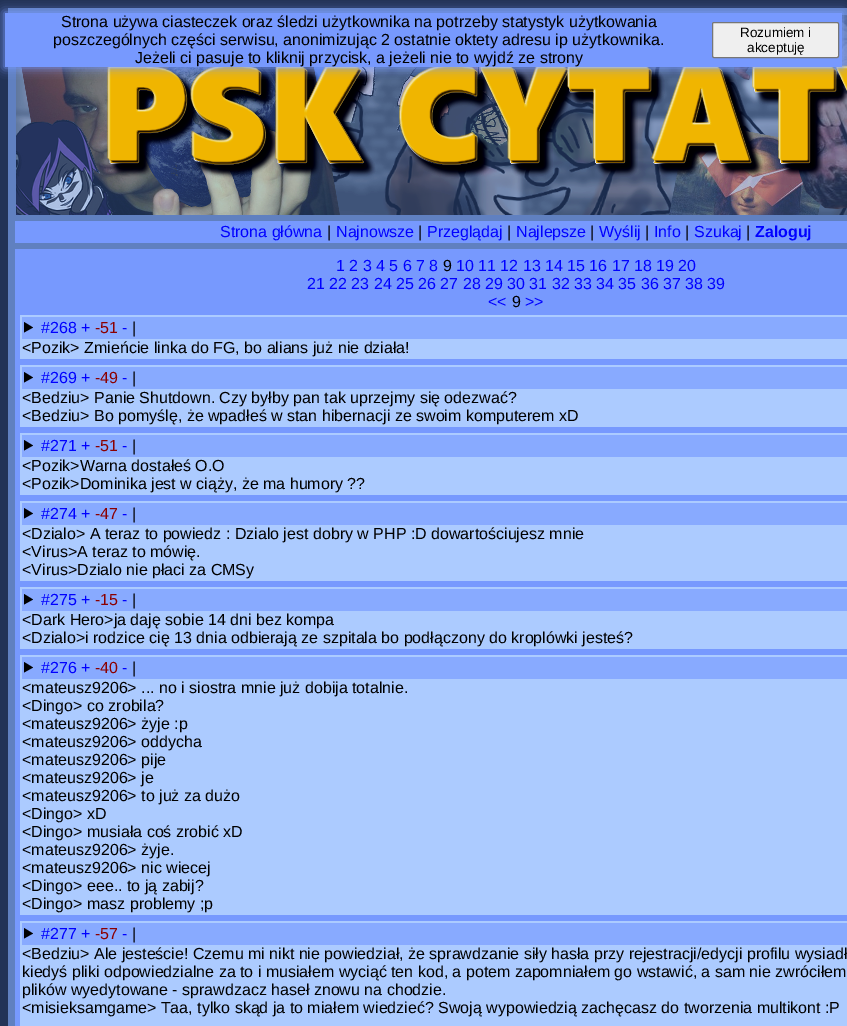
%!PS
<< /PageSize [847 1026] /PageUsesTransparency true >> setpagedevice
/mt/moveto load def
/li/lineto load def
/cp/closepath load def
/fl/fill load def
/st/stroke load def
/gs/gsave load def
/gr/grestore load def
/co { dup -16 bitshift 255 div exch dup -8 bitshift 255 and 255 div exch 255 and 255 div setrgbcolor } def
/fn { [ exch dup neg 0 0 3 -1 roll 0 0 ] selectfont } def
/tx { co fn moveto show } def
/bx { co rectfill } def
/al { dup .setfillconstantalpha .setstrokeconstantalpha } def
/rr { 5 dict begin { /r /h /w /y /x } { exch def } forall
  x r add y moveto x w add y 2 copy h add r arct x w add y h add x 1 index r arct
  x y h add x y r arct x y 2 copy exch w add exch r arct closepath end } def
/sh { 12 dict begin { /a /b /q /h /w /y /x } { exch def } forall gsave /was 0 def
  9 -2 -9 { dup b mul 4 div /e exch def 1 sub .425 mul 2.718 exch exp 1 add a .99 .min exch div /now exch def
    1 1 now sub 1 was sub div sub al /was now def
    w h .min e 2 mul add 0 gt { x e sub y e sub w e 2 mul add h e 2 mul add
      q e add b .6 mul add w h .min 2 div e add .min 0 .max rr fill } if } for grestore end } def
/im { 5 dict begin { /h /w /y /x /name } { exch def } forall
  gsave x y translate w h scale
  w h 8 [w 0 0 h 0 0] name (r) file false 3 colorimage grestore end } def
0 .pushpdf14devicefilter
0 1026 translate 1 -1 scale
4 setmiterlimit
0 0 847 1026 16#223357 bx
8 8 839 1018 16#6080C0 bx
(media/1.raw) 16 15 831 200 im
16#7799FE co
4 12 839 56 0 5 1 sh
5 13 837 54 16#7799FE bx
16#EFEFEF co
712.5 22.5 126 35 1.5 rr gs fl gr
16#767676 co
st
15 221 832 22 16#7799FE bx
15 249 832 777 16#7799FE bx
20 315 827 44 16#ACCBFF bx
22 317 825 22 16#88AAFF bx
16#000000 co
24 322 mt 33 327.5 li 24 332.5 li cp fl
20 365 827 62 16#ACCBFF bx
22 367 825 22 16#88AAFF bx
16#000000 co
24 372 mt 33 377.5 li 24 382.5 li cp fl
20 433 827 62 16#ACCBFF bx
22 435 825 22 16#88AAFF bx
16#000000 co
24 440 mt 33 445.5 li 24 450.5 li cp fl
20 501 827 80 16#ACCBFF bx
22 503 825 22 16#88AAFF bx
16#000000 co
24 508 mt 33 513.5 li 24 518.5 li cp fl
20 587 827 62 16#ACCBFF bx
22 589 825 22 16#88AAFF bx
16#000000 co
24 594 mt 33 599.5 li 24 604.5 li cp fl
20 655 827 260 16#ACCBFF bx
22 657 825 22 16#88AAFF bx
16#000000 co
24 662 mt 33 667.5 li 24 672.5 li cp fl
20 921 827 105 16#ACCBFF bx
22 923 825 22 16#88AAFF bx
16#000000 co
24 928 mt 33 933.5 li 24 938.5 li cp fl
(Strona używa ciasteczek oraz śledzi użytkownika na potrzeby statystyk użytkowania) 61 27 /LiberationSans-Regular 16 16#000000 tx
(poszczególnych części serwisu, anonimizując 2 ostatnie oktety adresu ip użytkownika.) 53 45 /LiberationSans-Regular 16 16#000000 tx
(Jeżeli ci pasuje to kliknij przycisk, a jeżeli nie to wyjdź ze strony) 135 63 /LiberationSans-Regular 16 16#000000 tx
(Rozumiem i) 740 37 /LiberationSans-Regular 13.5 16#000000 tx
(akceptuję) 747 52 /LiberationSans-Regular 13.5 16#000000 tx
(Strona główna) 220 237 /LiberationSans-Regular 16 16#0000FF tx
(|) 327 237 /LiberationSans-Regular 16 16#000000 tx
(Najnowsze) 336 237 /LiberationSans-Regular 16 16#0000FF tx
(|) 418 237 /LiberationSans-Regular 16 16#000000 tx
(Przeglądaj) 427 237 /LiberationSans-Regular 16 16#0000FF tx
(|) 507 237 /LiberationSans-Regular 16 16#000000 tx
(Najlepsze) 516 237 /LiberationSans-Regular 16 16#0000FF tx
(|) 590 237 /LiberationSans-Regular 16 16#000000 tx
(Wyślij) 599 237 /LiberationSans-Regular 16 16#0000FF tx
(|) 645 237 /LiberationSans-Regular 16 16#000000 tx
(Info) 654 237 /LiberationSans-Regular 16 16#0000FF tx
(|) 685 237 /LiberationSans-Regular 16 16#000000 tx
(Szukaj) 694 237 /LiberationSans-Regular 16 16#0000FF tx
(|) 746 237 /LiberationSans-Regular 16 16#000000 tx
(Zaloguj) 755 237 /LiberationSans-Bold 16 16#0000FF tx
(1 2 3 4 5 6 7 8) 336 271 /LiberationSans-Regular 16 16#0000FF tx
(9) 443 271 /LiberationSans-Regular 16 16#000000 tx
(10 11 12 13 14 15 16 17 18 19 20) 456 271 /LiberationSans-Regular 16 16#0000FF tx
(21 22 23 24 25 26 27 28 29 30 31 32 33 34 35 36 37 38 39) 307 289 /LiberationSans-Regular 16 16#0000FF tx
(<<) 488 307 /LiberationSans-Regular 16 16#0000FF tx
(9) 512 307 /LiberationSans-Regular 16 16#000000 tx
(>>) 525 307 /LiberationSans-Regular 16 16#0000FF tx
(#268 +) 41 333 /LiberationSans-Regular 16 16#0000FF tx
(-51) 95 333 /LiberationSans-Regular 16 16#8B0000 tx
(-) 122 333 /LiberationSans-Regular 16 16#0000FF tx
(|) 132 333 /LiberationSans-Regular 16 16#000000 tx
(<Pozik> Zmieńcie linka do FG, bo alians już nie działa!) 22 353 /LiberationSans-Regular 16 16#000000 tx
(#269 +) 41 383 /LiberationSans-Regular 16 16#0000FF tx
(-49) 95 383 /LiberationSans-Regular 16 16#8B0000 tx
(-) 122 383 /LiberationSans-Regular 16 16#0000FF tx
(|) 132 383 /LiberationSans-Regular 16 16#000000 tx
(<Bedziu> Panie Shutdown. Czy byłby pan tak uprzejmy się odezwać?) 22 403 /LiberationSans-Regular 16 16#000000 tx
(<Bedziu> Bo pomyślę, że wpadłeś w stan hibernacji ze swoim komputerem xD) 22 421 /LiberationSans-Regular 16 16#000000 tx
(#271 +) 41 451 /LiberationSans-Regular 16 16#0000FF tx
(-51) 95 451 /LiberationSans-Regular 16 16#8B0000 tx
(-) 122 451 /LiberationSans-Regular 16 16#0000FF tx
(|) 132 451 /LiberationSans-Regular 16 16#000000 tx
(<Pozik>Warna dostałeś O.O) 22 471 /LiberationSans-Regular 16 16#000000 tx
(<Pozik>Dominika jest w ciąży, że ma humory ??) 22 489 /LiberationSans-Regular 16 16#000000 tx
(#274 +) 41 519 /LiberationSans-Regular 16 16#0000FF tx
(-47) 95 519 /LiberationSans-Regular 16 16#8B0000 tx
(-) 122 519 /LiberationSans-Regular 16 16#0000FF tx
(|) 132 519 /LiberationSans-Regular 16 16#000000 tx
(<Dzialo> A teraz to powiedz : Dzialo jest dobry w PHP :D dowartościujesz mnie) 22 539 /LiberationSans-Regular 16 16#000000 tx
(<Virus>A teraz to mówię.) 22 557 /LiberationSans-Regular 16 16#000000 tx
(<Virus>Dzialo nie płaci za CMSy) 22 575 /LiberationSans-Regular 16 16#000000 tx
(#275 +) 41 605 /LiberationSans-Regular 16 16#0000FF tx
(-15) 95 605 /LiberationSans-Regular 16 16#8B0000 tx
(-) 122 605 /LiberationSans-Regular 16 16#0000FF tx
(|) 132 605 /LiberationSans-Regular 16 16#000000 tx
(<Dark Hero>ja daję sobie 14 dni bez kompa) 22 625 /LiberationSans-Regular 16 16#000000 tx
(<Dzialo>i rodzice cię 13 dnia odbierają ze szpitala bo podłączony do kroplówki jesteś?) 22 643 /LiberationSans-Regular 16 16#000000 tx
(#276 +) 41 673 /LiberationSans-Regular 16 16#0000FF tx
(-40) 95 673 /LiberationSans-Regular 16 16#8B0000 tx
(-) 122 673 /LiberationSans-Regular 16 16#0000FF tx
(|) 132 673 /LiberationSans-Regular 16 16#000000 tx
(<mateusz9206> ... no i siostra mnie już dobija totalnie.) 22 693 /LiberationSans-Regular 16 16#000000 tx
(<Dingo> co zrobila?) 22 711 /LiberationSans-Regular 16 16#000000 tx
(<mateusz9206> żyje :p) 22 729 /LiberationSans-Regular 16 16#000000 tx
(<mateusz9206> oddycha) 22 747 /LiberationSans-Regular 16 16#000000 tx
(<mateusz9206> pije) 22 765 /LiberationSans-Regular 16 16#000000 tx
(<mateusz9206> je) 22 783 /LiberationSans-Regular 16 16#000000 tx
(<mateusz9206> to już za dużo) 22 801 /LiberationSans-Regular 16 16#000000 tx
(<Dingo> xD) 22 819 /LiberationSans-Regular 16 16#000000 tx
(<Dingo> musiała coś zrobić xD) 22 837 /LiberationSans-Regular 16 16#000000 tx
(<mateusz9206> żyje.) 22 855 /LiberationSans-Regular 16 16#000000 tx
(<mateusz9206> nic wiecej) 22 873 /LiberationSans-Regular 16 16#000000 tx
(<Dingo> eee.. to ją zabij?) 22 891 /LiberationSans-Regular 16 16#000000 tx
(<Dingo> masz problemy ;p) 22 909 /LiberationSans-Regular 16 16#000000 tx
(#277 +) 41 939 /LiberationSans-Regular 16 16#0000FF tx
(-57) 95 939 /LiberationSans-Regular 16 16#8B0000 tx
(-) 122 939 /LiberationSans-Regular 16 16#0000FF tx
(|) 132 939 /LiberationSans-Regular 16 16#000000 tx
(<Bedziu> Ale jesteście! Czemu mi nikt nie powiedział, że sprawdzanie siły hasła przy rejestracji/edycji profilu wysiadł) 22 959 /LiberationSans-Regular 16 16#000000 tx
(kiedyś pliki odpowiedzialne za to i musiałem wyciąć ten kod, a potem zapomniałem go wstawić, a sam nie zwróciłem) 22 977 /LiberationSans-Regular 16 16#000000 tx
(plików wyedytowane - sprawdzacz haseł znowu na chodzie.) 22 995 /LiberationSans-Regular 16 16#000000 tx
(<misieksamgame> Taa, tylko skąd ja to miałem wiedzieć? Swoją wypowiedzią zachęcasz do tworzenia multikont :P) 22 1013 /LiberationSans-Regular 16 16#000000 tx
.poppdf14devicefilter showpage
